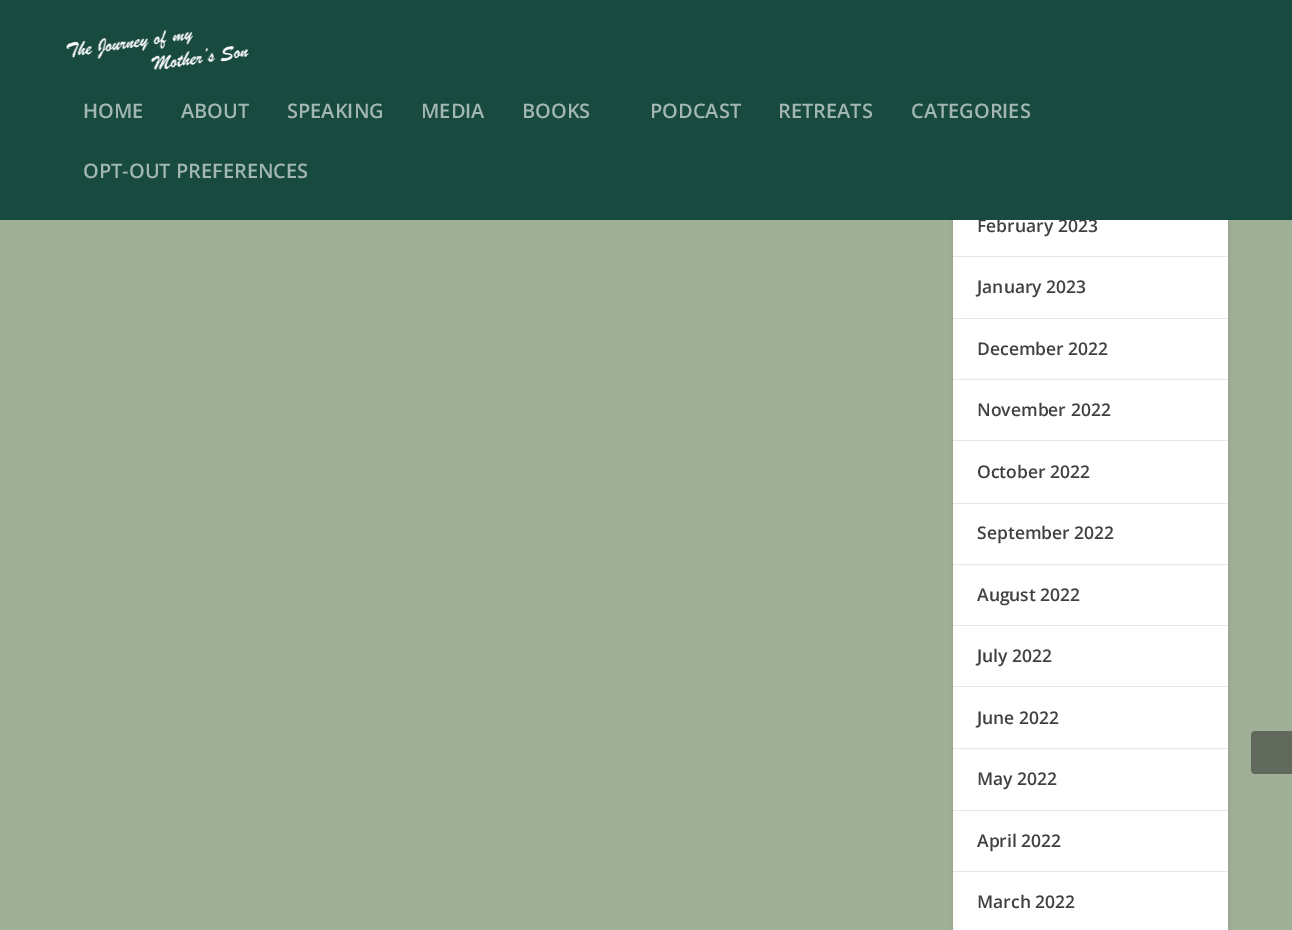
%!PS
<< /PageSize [1292 930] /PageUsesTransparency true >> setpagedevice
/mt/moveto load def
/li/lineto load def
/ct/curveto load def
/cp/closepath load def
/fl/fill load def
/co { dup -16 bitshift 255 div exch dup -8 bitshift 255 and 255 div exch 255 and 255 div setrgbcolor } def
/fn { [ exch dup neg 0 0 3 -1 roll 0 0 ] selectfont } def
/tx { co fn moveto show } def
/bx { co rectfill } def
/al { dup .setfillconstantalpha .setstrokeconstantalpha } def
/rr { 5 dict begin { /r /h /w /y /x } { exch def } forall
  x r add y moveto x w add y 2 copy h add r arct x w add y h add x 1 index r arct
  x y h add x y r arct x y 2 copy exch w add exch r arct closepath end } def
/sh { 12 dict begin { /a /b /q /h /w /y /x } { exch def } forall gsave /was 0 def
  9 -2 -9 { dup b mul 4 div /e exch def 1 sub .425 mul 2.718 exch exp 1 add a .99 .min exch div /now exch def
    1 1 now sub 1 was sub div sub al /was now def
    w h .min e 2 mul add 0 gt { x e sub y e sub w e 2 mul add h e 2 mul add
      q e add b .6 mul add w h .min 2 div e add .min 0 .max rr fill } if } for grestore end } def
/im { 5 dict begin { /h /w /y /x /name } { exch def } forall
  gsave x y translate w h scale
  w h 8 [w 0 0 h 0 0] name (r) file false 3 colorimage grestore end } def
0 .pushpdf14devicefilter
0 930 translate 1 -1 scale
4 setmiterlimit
0 0 1292 930 16#A0AF98 bx
16#000000 co
953 -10 275 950 4 2 .1 sh
953 220 275 710 16#FFFFFF bx
953 256 275 1 16#E6E6E6 bx
953 318 275 1 16#E6E6E6 bx
953 379 275 1 16#E6E6E6 bx
953 440 275 1 16#E6E6E6 bx
953 503 275 1 16#E6E6E6 bx
953 564 275 1 16#E6E6E6 bx
953 625 275 1 16#E6E6E6 bx
953 686 275 1 16#E6E6E6 bx
953 748 275 1 16#E6E6E6 bx
953 810 275 1 16#E6E6E6 bx
953 871 275 1 16#E6E6E6 bx
16#60695B co
1255 731 mt 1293 731 li 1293 774 li 1255 774 li 1253 774 1251 772 1251 770 ct 1251 735 li 1251 733 1253 731 1255 731 ct cp fl
(February 2023) 977 232 /OpenSans-SemiBold 17.5 16#404040 tx
0 0 1292 220 16#184A3F bx
(OPT-OUT PREFERENCES) 83 178 /OpenSans-SemiBold 20 16#A3B7B2 tx
(CATEGORIES) 911 118 /OpenSans-SemiBold 20 16#A3B7B2 tx
(RETREATS) 778 118 /OpenSans-SemiBold 20 16#A3B7B2 tx
(PODCAST) 650 118 /OpenSans-SemiBold 20 16#A3B7B2 tx
(BOOKS) 522 118 /OpenSans-SemiBold 20 16#A3B7B2 tx
(MEDIA) 421 118 /OpenSans-SemiBold 20 16#A3B7B2 tx
(SPEAKING) 287 118 /OpenSans-SemiBold 20 16#A3B7B2 tx
(ABOUT) 181 118 /OpenSans-SemiBold 20 16#A3B7B2 tx
(HOME) 83 118 /OpenSans-SemiBold 20 16#A3B7B2 tx
(media/1.raw) 65 30 184 40 im
(January 2023) 977 293 /OpenSans-SemiBold 17.5 16#404040 tx
(December 2022) 977 355 /OpenSans-SemiBold 17.5 16#404040 tx
(November 2022) 977 416 /OpenSans-SemiBold 17.5 16#404040 tx
(October 2022) 977 478 /OpenSans-SemiBold 17.5 16#404040 tx
(September 2022) 977 539 /OpenSans-SemiBold 17.5 16#404040 tx
(August 2022) 977 601 /OpenSans-SemiBold 17.5 16#404040 tx
(July 2022) 977 662 /OpenSans-SemiBold 17.5 16#404040 tx
(June 2022) 977 724 /OpenSans-SemiBold 17.5 16#404040 tx
(May 2022) 977 785 /OpenSans-SemiBold 17.5 16#404040 tx
(April 2022) 977 847 /OpenSans-SemiBold 17.5 16#404040 tx
(March 2022) 977 908 /OpenSans-SemiBold 17.5 16#404040 tx
.poppdf14devicefilter showpage
